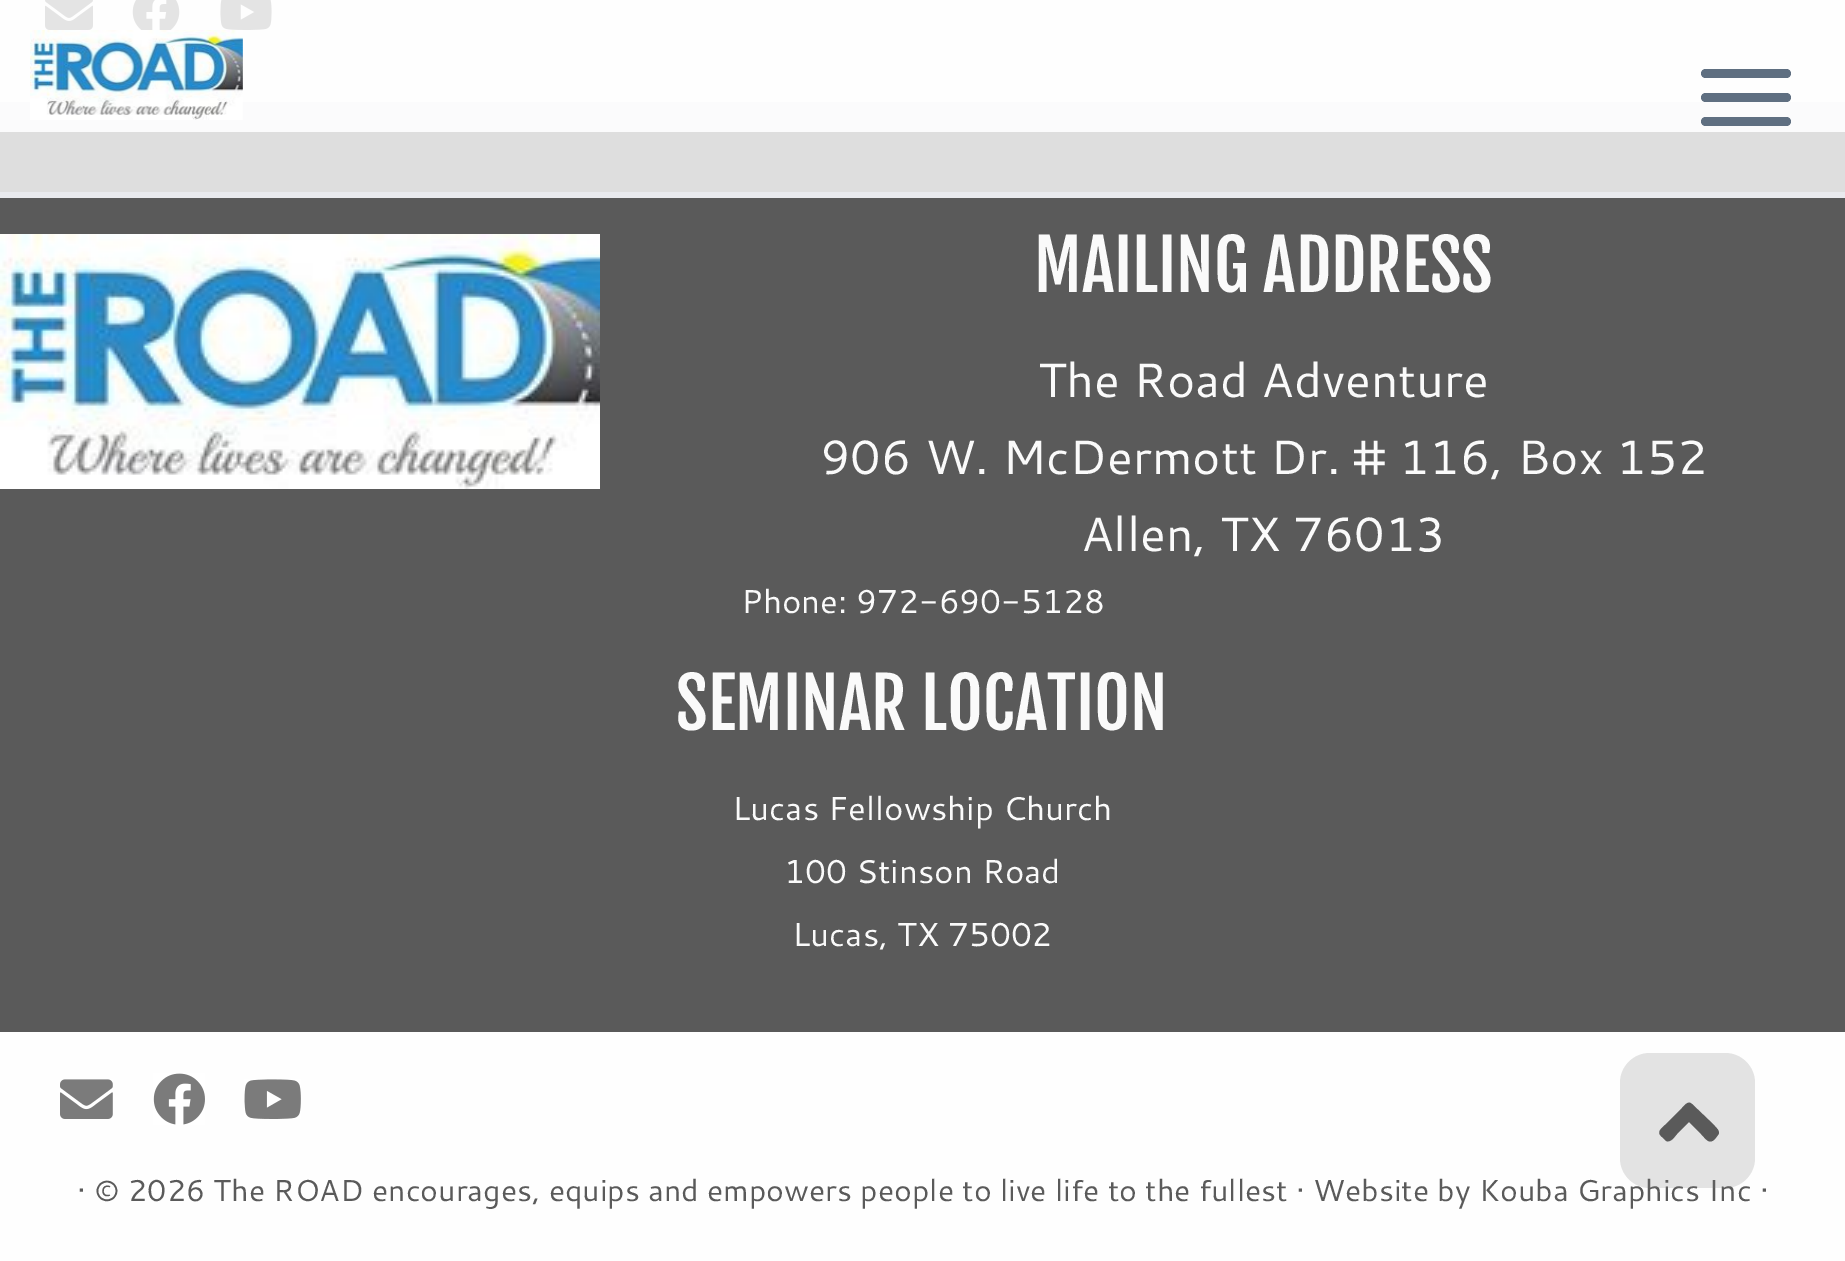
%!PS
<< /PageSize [1845 1261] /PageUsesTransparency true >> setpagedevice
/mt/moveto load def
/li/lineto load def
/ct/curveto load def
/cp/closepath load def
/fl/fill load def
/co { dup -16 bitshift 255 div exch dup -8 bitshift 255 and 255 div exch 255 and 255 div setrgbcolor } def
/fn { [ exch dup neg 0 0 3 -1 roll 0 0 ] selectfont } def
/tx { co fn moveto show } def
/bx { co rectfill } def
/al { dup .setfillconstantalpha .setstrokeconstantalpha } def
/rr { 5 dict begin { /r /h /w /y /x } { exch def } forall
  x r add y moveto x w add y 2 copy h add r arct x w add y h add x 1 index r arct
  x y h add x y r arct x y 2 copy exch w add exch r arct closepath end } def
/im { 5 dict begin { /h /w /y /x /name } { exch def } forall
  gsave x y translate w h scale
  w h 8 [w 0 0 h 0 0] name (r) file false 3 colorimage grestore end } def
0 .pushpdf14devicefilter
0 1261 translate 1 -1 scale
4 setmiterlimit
0 0 1845 1261 16#FEFEFE bx
(media/1.raw) 45 0 48 30 im
(media/2.raw) 132 0 48 30 im
(media/3.raw) 220 0 52 30 im
0 192 1845 6 16#E9EAEE bx
0 102 1845 30 16#FBFBFC bx
(media/4.raw) 30 30 213 90 im
16#5F6F81 co
1701 69 90 9 4.5 rr fl
1701 93 90 9 4.5 rr fl
1701 117 90 9 4.5 rr fl
0 198 1845 834 16#5A5A5A bx
0 132 1845 60 16#DEDEDE bx
(media/5.raw) 0 234 600 255 im
(media/6.raw) 60 1079 53 40 im
(media/7.raw) 153 1073 52 52 im
(media/8.raw) 244 1079 57 40 im
(MAILING ADDRESS) 1034 292 /FjallaOne-Regular 69 16#FAFAFA tx
(The Road Adventure) 1038 397 /Cantarell-Regular 48 16#FAFAFA tx
(906 W. McDermott Dr. # 116, Box 152) 820 474 /Cantarell-Regular 48 16#FAFAFA tx
(Allen, TX 76013) 1081 551 /Cantarell-Regular 48 16#FAFAFA tx
(Phone: 972-690-5128) 741 613 /Cantarell-Regular 33 16#FAFAFA tx
(SEMINAR LOCATION) 676 730 /FjallaOne-Regular 69 16#FAFAFA tx
(Lucas Fellowship Church) 732 820 /Cantarell-Regular 33 16#FAFAFA tx
(100 Stinson Road) 784 883 /Cantarell-Regular 33 16#FAFAFA tx
(Lucas, TX 75002) 792 946 /Cantarell-Regular 33 16#FAFAFA tx
(· © 2026 The ROAD encourages, equips and empowers people to live life to the fullest · Website by Kouba Graphics Inc ·) 77 1201 /Cantarell-Regular 30.25 16#5A5A5A tx
0.2 al
16#777777 co
1620 1053 135 135 30 rr fl
1 al
16#5A5A5A co
1692 1104 mt 1714 1125 li 1716 1128 1721 1131 1718 1135 ct 1715 1139 li 1709 1145 1706 1139 1701 1134 ct 1689 1122 li 1677 1134 li 1675 1136 1671 1143 1666 1141 ct 1662 1137 li 1656 1132 1661 1129 1665 1125 ct 1682 1108 li 1684 1106 1688 1100 1692 1104 ct cp fl
.poppdf14devicefilter showpage
